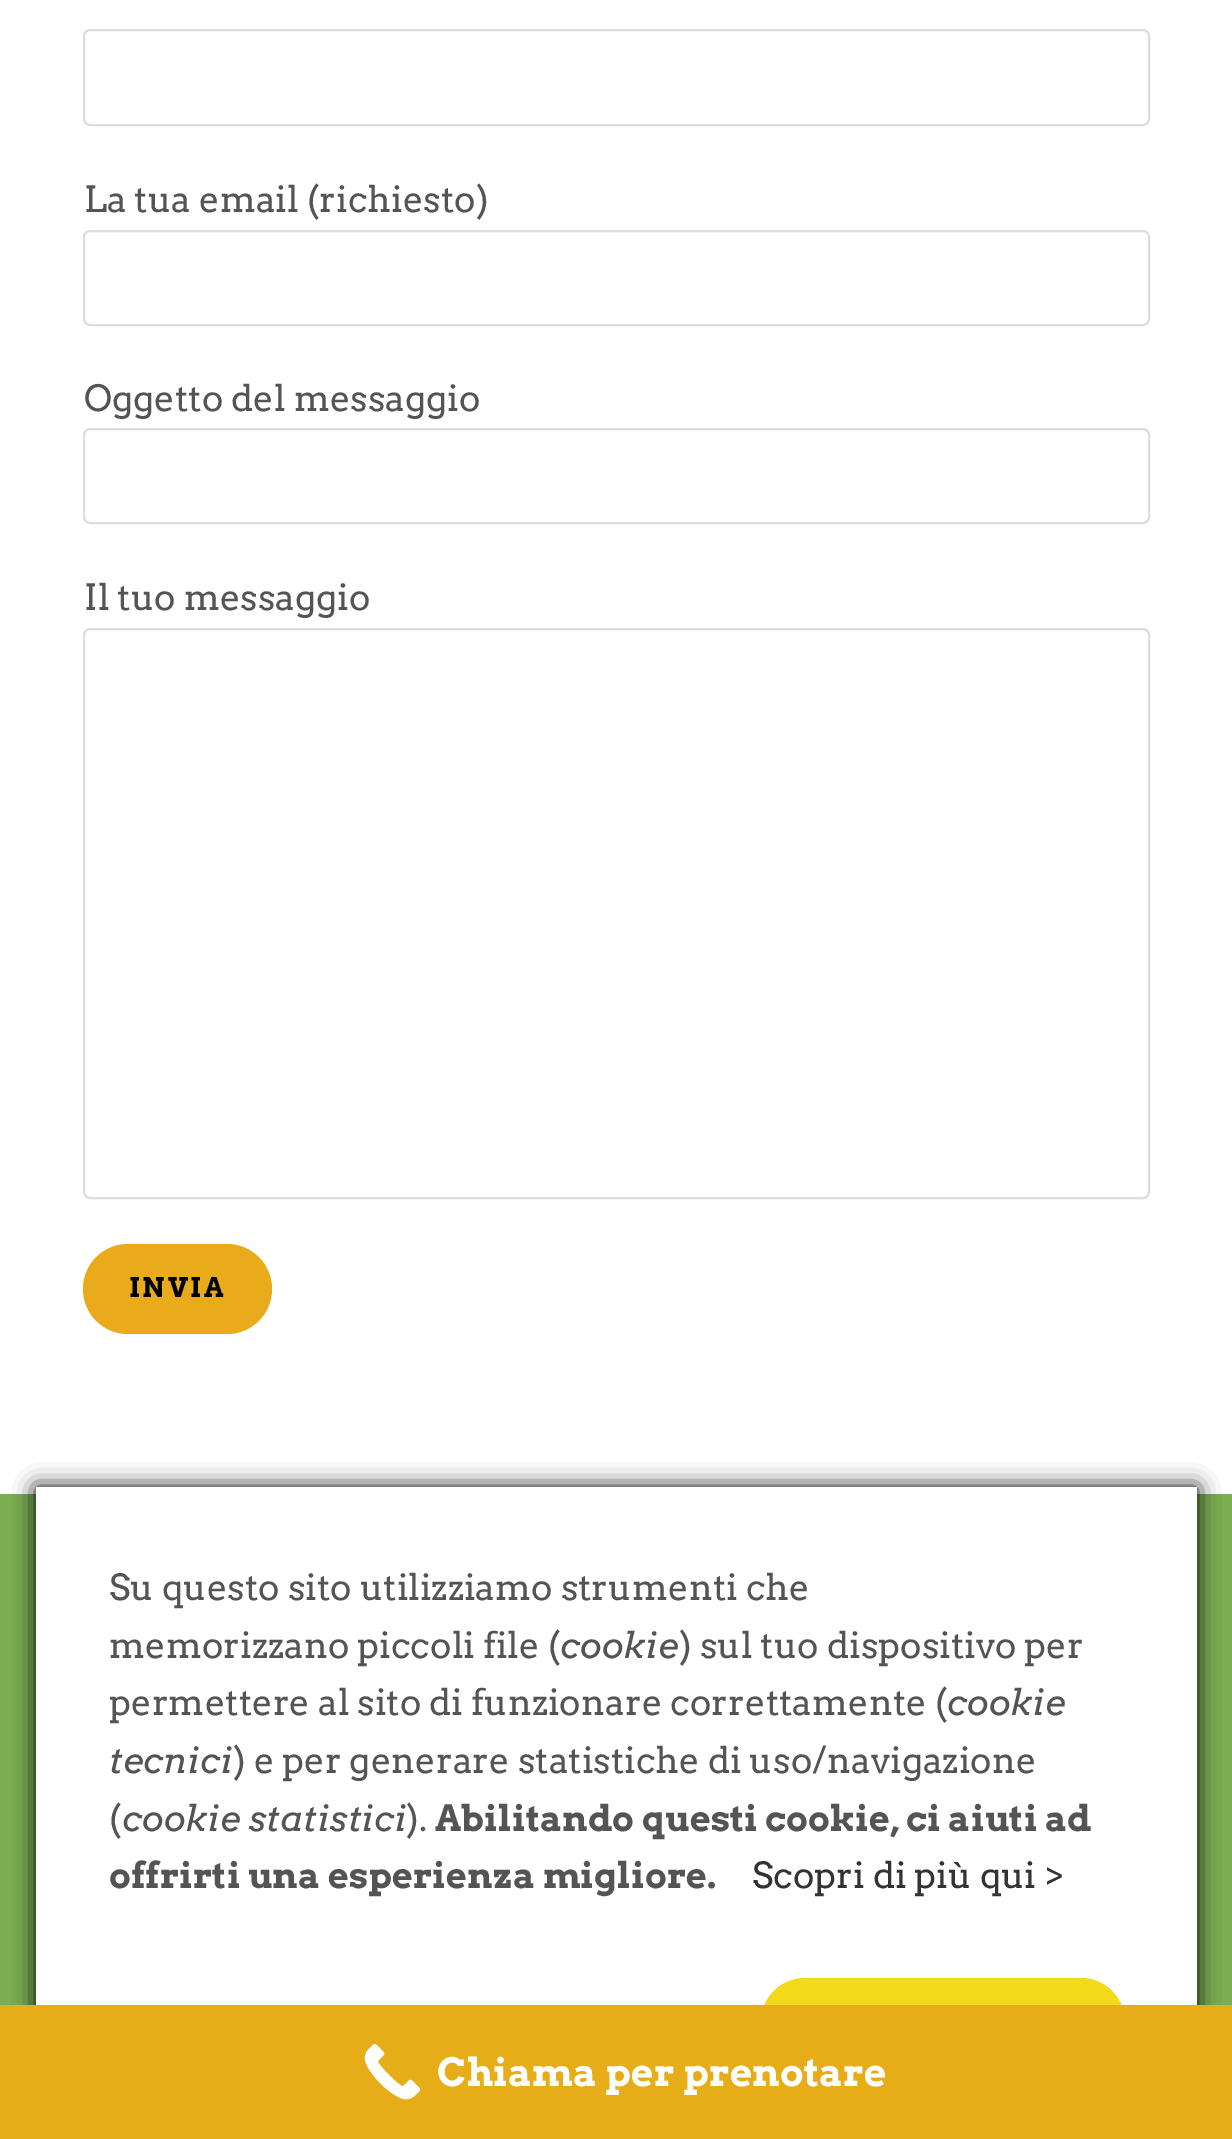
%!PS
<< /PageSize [1232 2139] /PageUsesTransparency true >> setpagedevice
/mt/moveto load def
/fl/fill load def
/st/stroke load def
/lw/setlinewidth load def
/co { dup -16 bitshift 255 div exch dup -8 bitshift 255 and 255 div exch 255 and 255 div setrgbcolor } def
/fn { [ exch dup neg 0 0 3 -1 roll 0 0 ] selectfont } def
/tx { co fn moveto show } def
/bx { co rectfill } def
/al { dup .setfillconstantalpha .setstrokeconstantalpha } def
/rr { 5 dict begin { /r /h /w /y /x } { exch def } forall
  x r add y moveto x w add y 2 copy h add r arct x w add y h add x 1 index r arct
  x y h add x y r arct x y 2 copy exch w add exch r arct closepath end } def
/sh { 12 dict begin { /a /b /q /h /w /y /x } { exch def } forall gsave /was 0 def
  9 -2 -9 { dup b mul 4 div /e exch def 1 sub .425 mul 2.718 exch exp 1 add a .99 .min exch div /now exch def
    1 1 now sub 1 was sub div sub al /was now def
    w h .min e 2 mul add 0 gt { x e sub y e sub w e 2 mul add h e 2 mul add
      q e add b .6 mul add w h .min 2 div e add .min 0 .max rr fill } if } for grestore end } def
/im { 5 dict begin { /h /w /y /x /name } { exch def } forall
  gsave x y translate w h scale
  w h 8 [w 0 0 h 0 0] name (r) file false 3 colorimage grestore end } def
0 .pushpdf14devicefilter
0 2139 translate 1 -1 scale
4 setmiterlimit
0 0 1232 2139 16#FFFFFF bx
16#DDDDDD co
2 lw
84 30 1065 95 6 rr st
84 231 1065 94 6 rr st
84 429 1065 94 6 rr st
84 629 1065 569 6 rr st
16#E9AB1B co
83 1244 189 90 45 rr fl
0 1494 1232 511 16#7CAD53 bx
16#000000 co
36 1487 1161 651 0 11 1 sh
36 1487 1161 518 16#FFFFFF bx
16#F3DA1A co
761 1978 364 88 44 rr fl
0 2005 1232 134 16#E7AD18 bx
(media/1.raw) 364 2043 57 57 im
(La tua email \(richiesto\)) 84 212 /Arvo-Regular 36 16#545454 tx
(Oggetto del messaggio) 84 411 /Arvo-Regular 36 16#545454 tx
(Il tuo messaggio) 84 610 /Arvo-Regular 36 16#545454 tx
/Arvo-Bold 27 fn
16#000000 co
129 1297 mt 2.75 0 (INVIA) ashow
(Su questo sito utilizziamo strumenti che) 109 1600 /Arvo-Regular 36 16#545454 tx
(memorizzano piccoli file \() 109 1658 /Arvo-Regular 36 16#545454 tx
(cookie) 560 1658 /Arvo-Italic 36 16#545454 tx
(\) sul tuo dispositivo per) 679 1658 /Arvo-Regular 36 16#545454 tx
(permettere al sito di funzionare correttamente \() 109 1715 /Arvo-Regular 36 16#545454 tx
(cookie) 947 1715 /Arvo-Italic 36 16#545454 tx
(tecnici) 109 1773 /Arvo-Italic 36 16#545454 tx
(\) e per generare statistiche di uso/navigazione) 233 1773 /Arvo-Regular 36 16#545454 tx
(\() 109 1831 /Arvo-Regular 36 16#545454 tx
(cookie statistici) 122 1831 /Arvo-Italic 36 16#545454 tx
(\).) 406 1831 /Arvo-Regular 36 16#545454 tx
(Abilitando questi cookie, ci aiuti ad) 435 1831 /Arvo-Bold 36 16#545454 tx
(offrirti una esperienza migliore.) 109 1888 /Arvo-Bold 36 16#545454 tx
(Scopri di più qui >) 752 1888 /Arvo-Regular 36 16#333333 tx
(Chiama per prenotare) 437 2086 /Arvo-Bold 38.9 16#FFFFFF tx
.poppdf14devicefilter showpage
